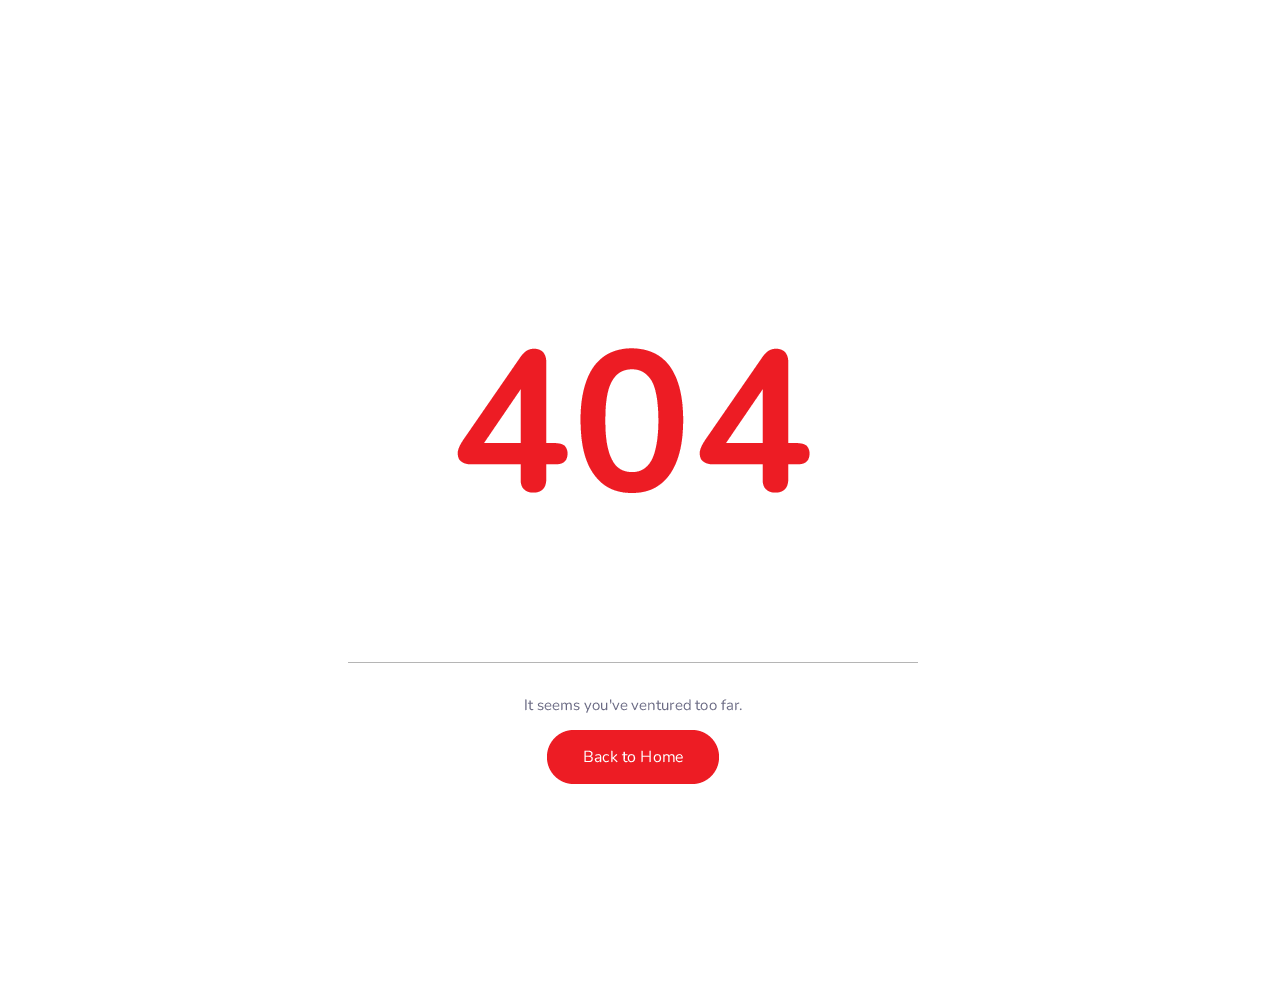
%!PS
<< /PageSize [1266 995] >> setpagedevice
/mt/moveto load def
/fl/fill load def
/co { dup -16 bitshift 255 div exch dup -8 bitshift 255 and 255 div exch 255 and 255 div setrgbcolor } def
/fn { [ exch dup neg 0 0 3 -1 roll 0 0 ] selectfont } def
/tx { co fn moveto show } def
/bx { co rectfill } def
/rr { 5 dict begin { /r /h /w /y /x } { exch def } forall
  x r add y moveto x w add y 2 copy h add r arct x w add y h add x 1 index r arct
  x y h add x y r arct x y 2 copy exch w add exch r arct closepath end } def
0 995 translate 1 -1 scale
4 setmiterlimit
0 0 1266 995 16#FFFFFF bx
348 662 570 1 16#B5B5B5 bx
16#ED1C24 co
547 730 172 54 27 rr fl
/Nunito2-ExtraLight 200 fn
451 491 mt 1 0 (404) ashow
(It seems you've ventured too far.) 524 710 /Nunito-ExtraLight 15 16#6B6B84 tx
(Back to Home) 583 762 /Nunito-ExtraLight 16 16#FFFFFF tx
showpage
